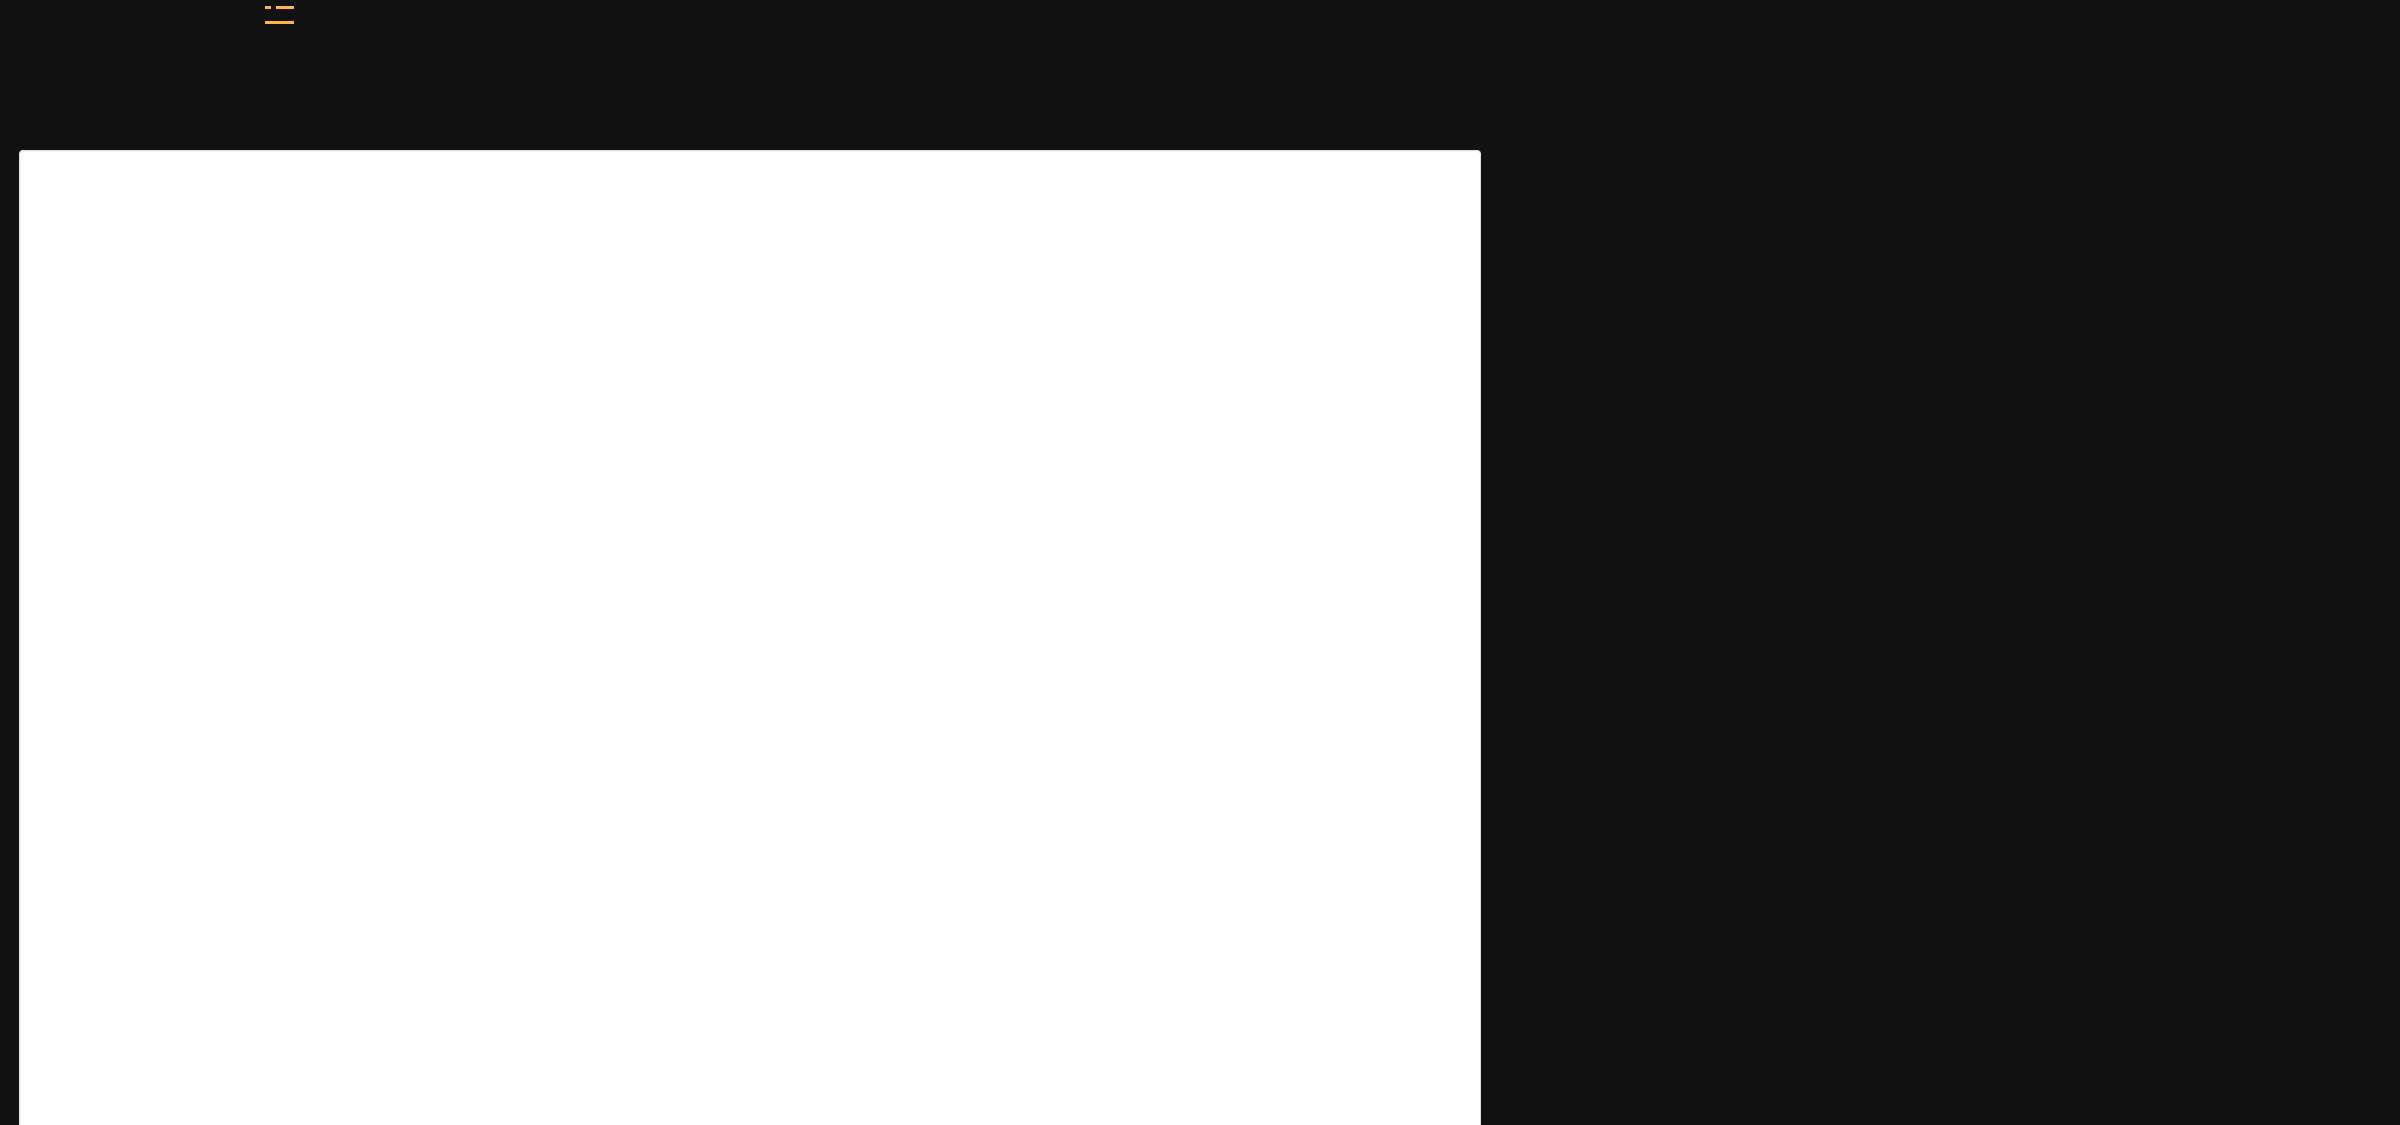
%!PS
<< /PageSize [2400 1125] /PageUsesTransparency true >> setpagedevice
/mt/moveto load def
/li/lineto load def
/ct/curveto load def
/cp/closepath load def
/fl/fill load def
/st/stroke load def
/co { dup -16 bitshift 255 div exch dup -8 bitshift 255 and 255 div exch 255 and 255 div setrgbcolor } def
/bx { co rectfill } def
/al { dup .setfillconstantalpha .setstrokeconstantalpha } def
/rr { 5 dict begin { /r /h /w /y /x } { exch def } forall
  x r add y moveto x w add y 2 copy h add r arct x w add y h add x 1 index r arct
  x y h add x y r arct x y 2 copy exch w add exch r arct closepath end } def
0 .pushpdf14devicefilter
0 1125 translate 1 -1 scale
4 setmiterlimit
0 0 2400 1125 16#111111 bx
265 6 6 3 16#FFB443 bx
276 6 18 3 16#FFB443 bx
265 21 29 3 16#FFB443 bx
16#FFFFFF co
23 150 mt 1477 150 li 1479 150 1481 152 1481 154 ct 1481 1125 li 19 1125 li 19 154 li 19 152 21 150 23 150 ct cp fl
0.12 al
16#000000 co
19.5 150.5 1461 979 3.5 rr st
.poppdf14devicefilter showpage
